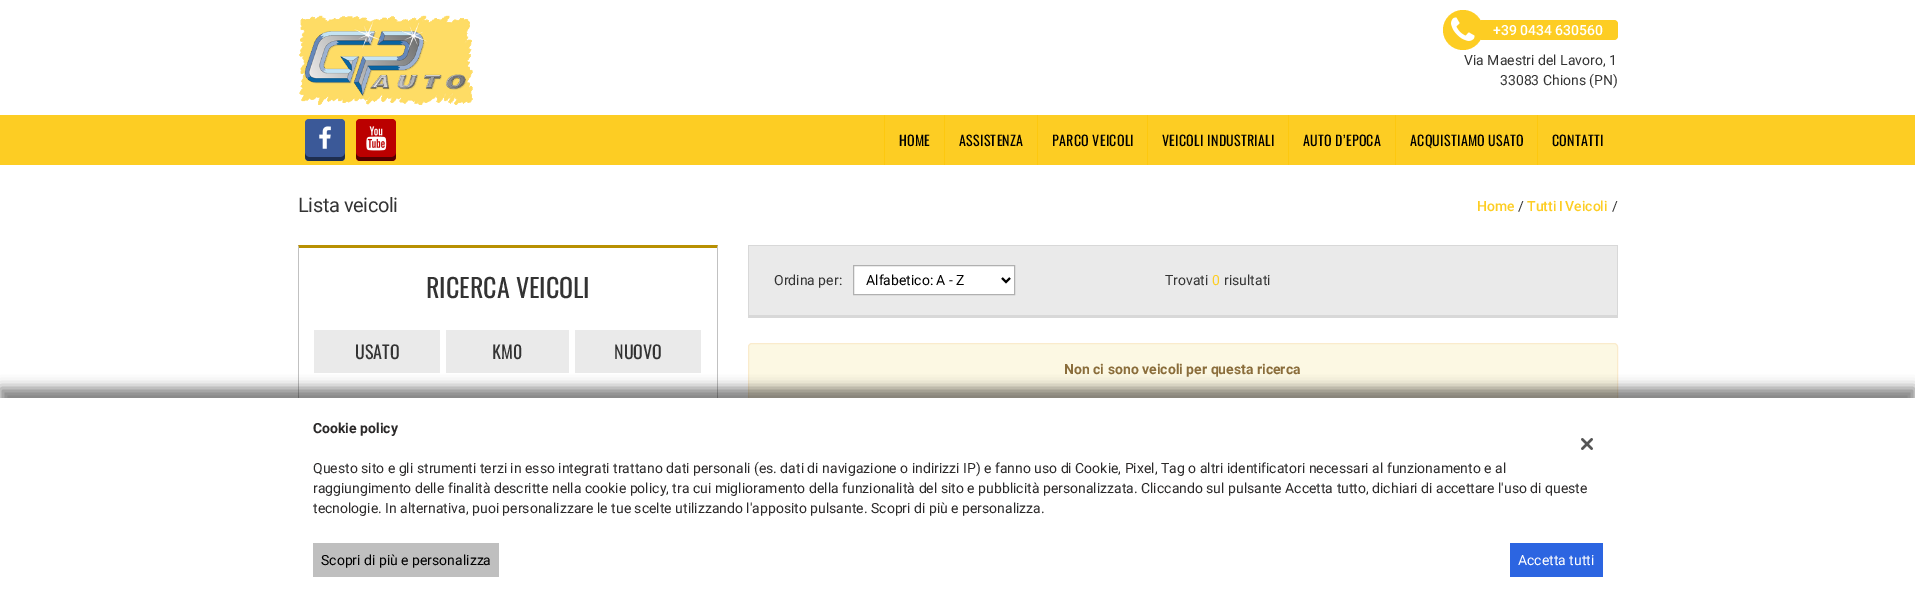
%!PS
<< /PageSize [1915 607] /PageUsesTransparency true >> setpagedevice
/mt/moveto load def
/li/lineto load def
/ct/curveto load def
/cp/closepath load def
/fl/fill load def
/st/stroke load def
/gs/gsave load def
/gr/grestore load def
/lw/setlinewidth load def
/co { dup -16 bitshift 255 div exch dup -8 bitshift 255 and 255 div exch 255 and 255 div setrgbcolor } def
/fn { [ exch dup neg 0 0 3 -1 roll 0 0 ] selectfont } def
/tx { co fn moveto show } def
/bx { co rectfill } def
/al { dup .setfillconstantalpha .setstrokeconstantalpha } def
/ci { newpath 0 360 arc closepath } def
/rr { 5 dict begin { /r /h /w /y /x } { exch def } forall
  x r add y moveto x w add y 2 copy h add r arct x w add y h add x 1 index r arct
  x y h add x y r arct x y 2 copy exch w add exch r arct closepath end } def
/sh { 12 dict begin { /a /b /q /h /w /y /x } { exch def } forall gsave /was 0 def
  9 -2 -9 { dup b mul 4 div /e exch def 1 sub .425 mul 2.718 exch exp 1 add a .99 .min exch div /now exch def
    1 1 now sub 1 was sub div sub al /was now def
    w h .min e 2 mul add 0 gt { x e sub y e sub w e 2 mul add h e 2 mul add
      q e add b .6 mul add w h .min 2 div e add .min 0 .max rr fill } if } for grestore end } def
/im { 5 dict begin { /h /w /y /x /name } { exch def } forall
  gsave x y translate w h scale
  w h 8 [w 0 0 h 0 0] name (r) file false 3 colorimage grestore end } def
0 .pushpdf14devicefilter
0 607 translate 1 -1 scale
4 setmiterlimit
0 0 1915 607 16#FFFFFF bx
(media/1.raw) 299 15 174 90 im
16#FDCD23 co
1463 30 20 ci fl
(media/2.raw) 1451 17 24 24 im
1478 20 140 20 4 rr fl
0 115 1915 50 16#FDCD23 bx
16#3B5998 co
305 119 40 42 4 rr fl
16#1E2E4F co
305 153 mt 305 161 306 161 314 161 ct 336 161 li 344 161 345 161 345 153 ct 345 155 343 157 341 157 ct 309 157 li 307 157 305 155 305 153 ct cp fl
(media/3.raw) 319 126 12 23 im
16#BB0000 co
356 119 40 42 4 rr fl
16#550000 co
356 153 mt 356 161 357 161 365 161 ct 387 161 li 395 161 396 161 396 153 ct 396 155 394 157 392 157 ct 360 157 li 358 157 356 155 356 153 ct cp fl
(media/4.raw) 366 126 21 25 im
884 115 1 50 16#FDC80F bx
944 115 1 50 16#FDC80F bx
1037 115 1 50 16#FDC80F bx
1147 115 1 50 16#FDC80F bx
1288 115 1 50 16#FDC80F bx
1395 115 1 50 16#FDC80F bx
1537 115 1 50 16#FDC80F bx
16#B89002 co
298 245 mt 718 245 li 717 248 li 299 248 li cp fl
16#C1C1C1 co
718 245 mt 718 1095 li 717 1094 li 717 248 li cp fl
298 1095 mt 298 245 li 299 248 li 299 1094 li cp fl
314 330 126 43 16#EAEAEA bx
446 330 123 43 16#EAEAEA bx
575 330 126 43 16#EAEAEA bx
749 246 868 69 16#EAEAEA bx
748 245 870 1 16#D8D8D8 bx
1617 245 1 73 16#D8D8D8 bx
748 315 870 3 16#D8D8D8 bx
748 245 1 73 16#D8D8D8 bx
16#FFFFFF co
853.5 265.5 mt 1014.5 265.5 li 1014.5 294.5 li 853.5 294.5 li cp gs fl gr
16#B0B0B0 co
st
16#000000 co
2 lw
1002 278 mt 1006 282 li 1010 278 li st
16#FCF8E3 co
748.5 343.5 869 91 3.5 rr gs fl gr
16#FAEBCC co
1 lw
st
16#000000 co
0 388 1915 209 0 6 .5 sh
0 398 1915 209 16#FFFFFF bx
313 543 186 34 16#BFBFBF bx
1510 543 93 34 16#2C65E1 bx
(media/5.raw) 1581 438 12 12 im
(+39 0434 630560) 1493 35 /Roboto-Medium 14 16#FFFFFF tx
(Via Maestri del Lavoro, 1) 1464 65 /Roboto-Regular 14 16#333333 tx
(33083 Chions \(PN\)) 1500 85 /Roboto-Regular 14 16#333333 tx
/Oswald-Regular 14 fn
16#000000 co
899 146 mt .25 0 (HOME) ashow
959 146 mt .25 0 (ASSISTENZA) ashow
1052 146 mt .25 0 (PARCO VEICOLI) ashow
1162 146 mt .25 0 (VEICOLI INDUSTRIALI) ashow
1303 146 mt .25 0 (AUTO D’EPOCA) ashow
1410 146 mt .25 0 (ACQUISTIAMO USATO) ashow
1552 146 mt .25 0 (CONTATTI) ashow
/Roboto-Regular 20 fn
16#333333 co
298 212 mt -.4 0 (Lista veicoli) ashow
(Home) 1477 211 /Roboto-Medium 14 16#FDCD23 tx
(/) 1518 211 /Roboto-Regular 14 16#333333 tx
/Roboto-Medium 14 fn
16#FDCD23 co
1527 211 mt -1 0 32 (Tutti I Veicoli) widthshow
(/) 1612 211 /Roboto-Regular 14 16#333333 tx
(RICERCA VEICOLI) 426 298 /Oswald-Regular 26 16#333333 tx
(USATO) 355 359 /Oswald-Regular 18 16#333333 tx
(KM0) 492 359 /Oswald-Regular 18 16#333333 tx
(NUOVO) 614 359 /Oswald-Regular 18 16#333333 tx
(Ordina per:) 774 285 /Roboto-Regular 14 16#333333 tx
(Alfabetico: A - Z) 866 285 /Roboto-Regular 14 16#000000 tx
(Trovati) 1165 285 /Roboto-Regular 14 16#333333 tx
(0) 1212 285 /Roboto-Regular 14 16#FDCD23 tx
(risultati) 1224 285 /Roboto-Regular 14 16#333333 tx
(Non ci sono veicoli per questa ricerca) 1064 374 /Roboto-Bold 14 16#8A6D3B tx
(Cookie policy) 313 433 /Roboto-Bold 14 16#2B2929 tx
(Questo sito e gli strumenti terzi in esso integrati trattano dati personali \(es. dati di navigazione o indirizzi IP\) e fanno uso di Cookie, Pixel, Tag o altri identificatori necessari al funzionamento e al) 313 473 /Roboto-Regular 14 16#2B2929 tx
(raggiungimento delle finalità descritte nella cookie policy, tra cui miglioramento della funzionalità del sito e pubblicità personalizzata. Cliccando sul pulsante Accetta tutto, dichiari di accettare l'uso di queste) 313 493 /Roboto-Regular 14 16#2B2929 tx
(tecnologie. In alternativa, puoi personalizzare le tue scelte utilizzando l'apposito pulsante. Scopri di più e personalizza.) 313 513 /Roboto-Regular 14 16#2B2929 tx
(Scopri di più e personalizza) 321 565 /Roboto-Regular 14 16#000000 tx
(Accetta tutti) 1518 565 /Roboto-Regular 14 16#FFFFFF tx
.poppdf14devicefilter showpage
